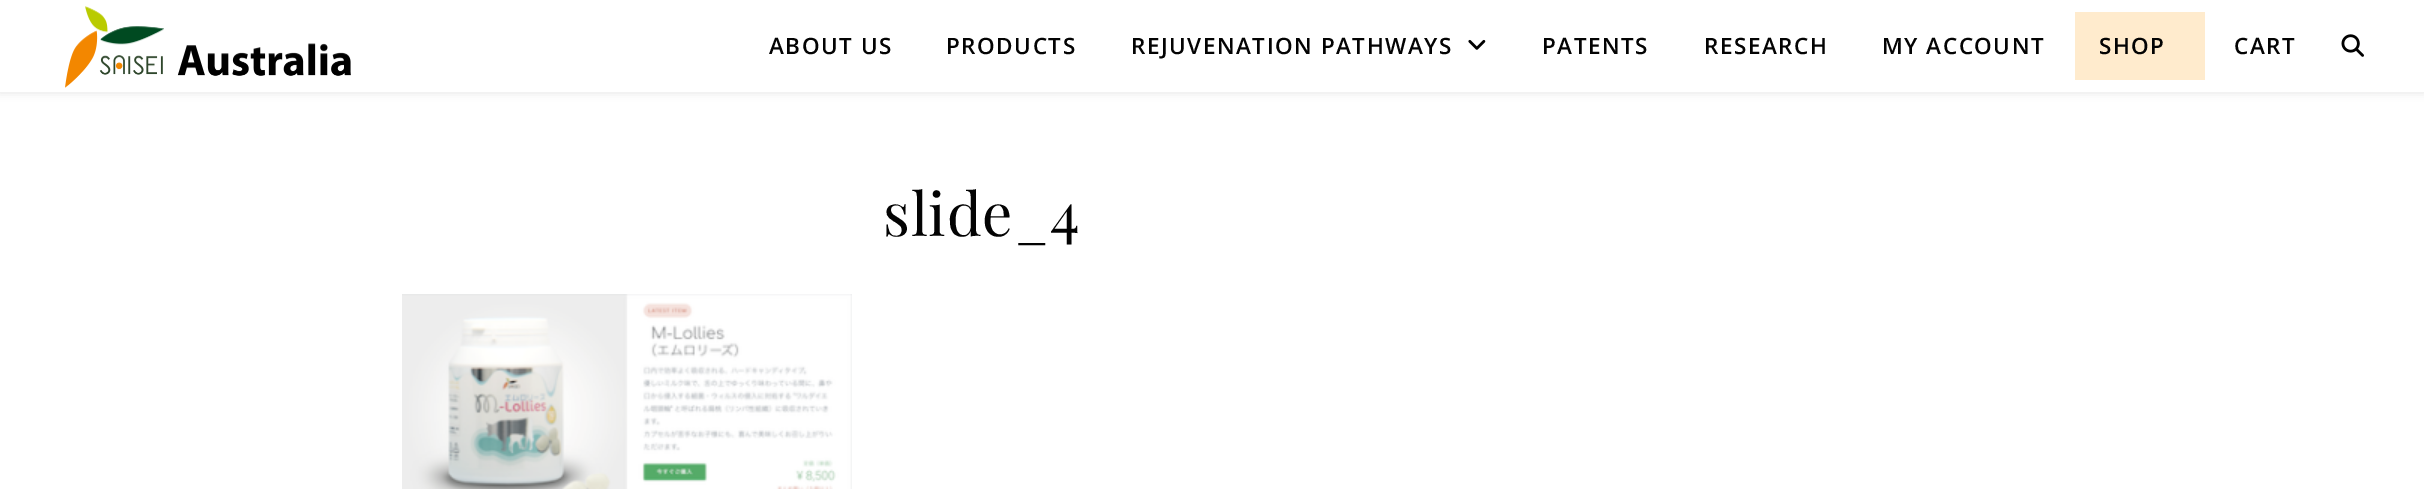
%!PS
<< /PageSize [2424 489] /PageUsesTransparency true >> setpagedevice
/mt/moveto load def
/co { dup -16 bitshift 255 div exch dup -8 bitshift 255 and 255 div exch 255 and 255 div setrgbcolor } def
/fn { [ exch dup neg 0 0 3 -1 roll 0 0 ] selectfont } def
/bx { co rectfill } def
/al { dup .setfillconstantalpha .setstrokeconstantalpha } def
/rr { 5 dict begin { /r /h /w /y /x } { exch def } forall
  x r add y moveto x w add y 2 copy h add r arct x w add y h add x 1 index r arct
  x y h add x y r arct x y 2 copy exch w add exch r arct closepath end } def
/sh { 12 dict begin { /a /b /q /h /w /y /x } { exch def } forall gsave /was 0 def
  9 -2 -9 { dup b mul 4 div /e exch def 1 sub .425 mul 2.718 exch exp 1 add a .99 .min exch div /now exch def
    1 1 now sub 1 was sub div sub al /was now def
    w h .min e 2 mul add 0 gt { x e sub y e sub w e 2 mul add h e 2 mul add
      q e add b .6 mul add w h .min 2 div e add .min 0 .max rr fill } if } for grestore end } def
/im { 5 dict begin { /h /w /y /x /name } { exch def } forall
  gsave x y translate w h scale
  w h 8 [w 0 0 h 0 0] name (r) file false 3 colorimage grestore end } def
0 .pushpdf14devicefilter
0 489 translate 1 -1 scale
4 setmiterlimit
0 0 2424 489 16#FFFFFF bx
16#000000 co
0 2 2424 91 0 4 .1 sh
0 0 2424 92 16#FFFFFF bx
(media/1.raw) 65 6 286 82 im
(media/2.raw) 1468 39 18 11 im
2075 12 130 68 16#FFEBCD bx
(media/3.raw) 2341 34 23 23 im
(media/4.raw) 402 294 450 195 im
/OpenSans-SemiBold 22.5 fn
16#030303 co
769 54 mt 1.5 0 (ABOUT US) ashow
946 54 mt 1.5 0 (PRODUCTS) ashow
1131 54 mt 1.5 0 (REJUVENATION PATHWAYS) ashow
1542 54 mt 1.5 0 (PATENTS) ashow
1704 54 mt 1.5 0 (RESEARCH) ashow
1882 54 mt 1.5 0 (MY ACCOUNT) ashow
2099 54 mt 1.5 0 (SHOP) ashow
2234 54 mt 1.5 0 (CART) ashow
/PlayfairDisplay-Regular 60 fn
883 236 mt .75 0 (slide_4) ashow
.poppdf14devicefilter showpage
